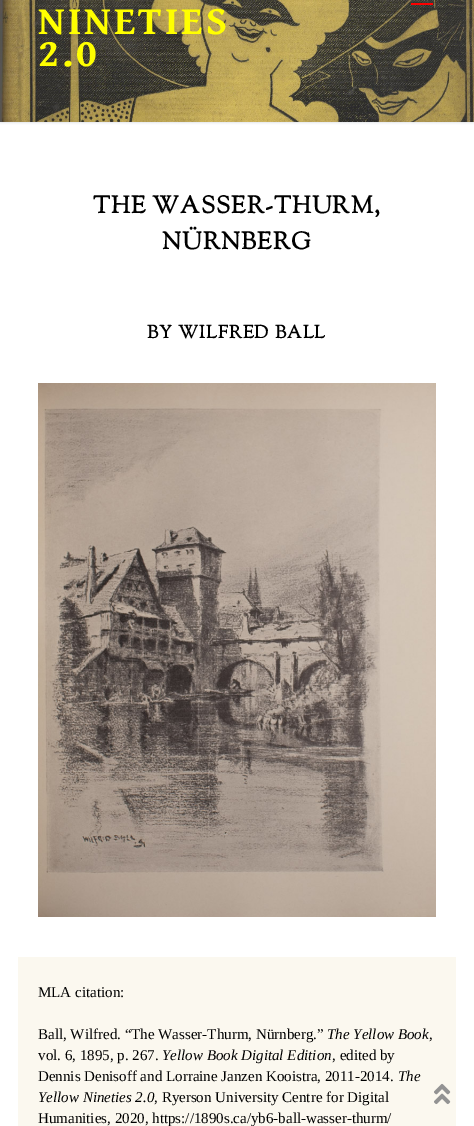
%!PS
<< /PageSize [474 1126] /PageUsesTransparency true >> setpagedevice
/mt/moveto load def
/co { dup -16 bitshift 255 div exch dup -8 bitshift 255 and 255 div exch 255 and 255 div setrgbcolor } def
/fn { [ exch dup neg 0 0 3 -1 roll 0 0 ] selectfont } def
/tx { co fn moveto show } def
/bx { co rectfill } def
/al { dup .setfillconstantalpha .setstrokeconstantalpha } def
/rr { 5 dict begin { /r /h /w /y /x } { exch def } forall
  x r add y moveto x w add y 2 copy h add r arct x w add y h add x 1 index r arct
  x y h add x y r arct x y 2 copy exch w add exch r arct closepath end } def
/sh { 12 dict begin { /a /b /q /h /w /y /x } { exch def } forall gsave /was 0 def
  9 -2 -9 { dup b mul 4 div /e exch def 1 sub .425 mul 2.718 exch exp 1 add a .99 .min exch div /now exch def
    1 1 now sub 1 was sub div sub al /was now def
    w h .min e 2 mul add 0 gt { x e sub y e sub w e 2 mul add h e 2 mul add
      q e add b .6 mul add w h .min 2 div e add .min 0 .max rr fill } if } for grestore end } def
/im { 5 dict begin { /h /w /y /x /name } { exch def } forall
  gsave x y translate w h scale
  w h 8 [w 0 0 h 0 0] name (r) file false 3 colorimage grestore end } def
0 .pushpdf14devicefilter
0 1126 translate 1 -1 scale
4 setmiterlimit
0 0 474 1126 16#FFFFFF bx
16#E1E5EA co
0 -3 474 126 0 1 1 sh
(media/1.raw) 0 0 474 122 im
411 3 22 2 16#FF0000 bx
(media/2.raw) 38 383 398 534 im
18 957 438 169 16#FBF8EF bx
(media/3.raw) 434 1083 17 22 im
/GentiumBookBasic-Bold 40 fn
16#FFFF00 co
38 34 mt 3 0 (NINETIES) ashow
38 66 mt 3 0 (2.0) ashow
/SortsMillGoudy-Bold 24 fn
16#000000 co
93 213 mt 1 0 (THE WASSER-THURM,) ashow
162 249 mt 1 0 (NÜRNBERG) ashow
/SortsMillGoudy-Bold 18 fn
147 338 mt 1 0 (BY WILFRED BALL) ashow
(MLA citation:) 38 997 /LiberationSerif-Regular 15 16#000000 tx
(Ball, Wilfred. “The Wasser-Thurm, Nürnberg.”) 38 1039 /LiberationSerif-Regular 15 16#000000 tx
(The Yellow Book,) 327 1039 /LiberationSerif-Italic 15 16#000000 tx
(vol. 6, 1895, p. 267.) 38 1060 /LiberationSerif-Regular 15 16#000000 tx
(Yellow Book Digital Edition) 162 1060 /LiberationSerif-Italic 15 16#000000 tx
(, edited by) 332 1060 /LiberationSerif-Regular 15 16#000000 tx
(Dennis Denisoff and Lorraine Janzen Kooistra, 2011-2014.) 38 1081 /LiberationSerif-Regular 15 16#000000 tx
(The) 398 1081 /LiberationSerif-Italic 15 16#000000 tx
(Yellow Nineties 2.0) 38 1102 /LiberationSerif-Italic 15 16#000000 tx
(, Ryerson University Centre for Digital) 154 1102 /LiberationSerif-Regular 15 16#000000 tx
(Humanities, 2020, https://1890s.ca/yb6-ball-wasser-thurm/) 38 1123 /LiberationSerif-Regular 15 16#000000 tx
.poppdf14devicefilter showpage
